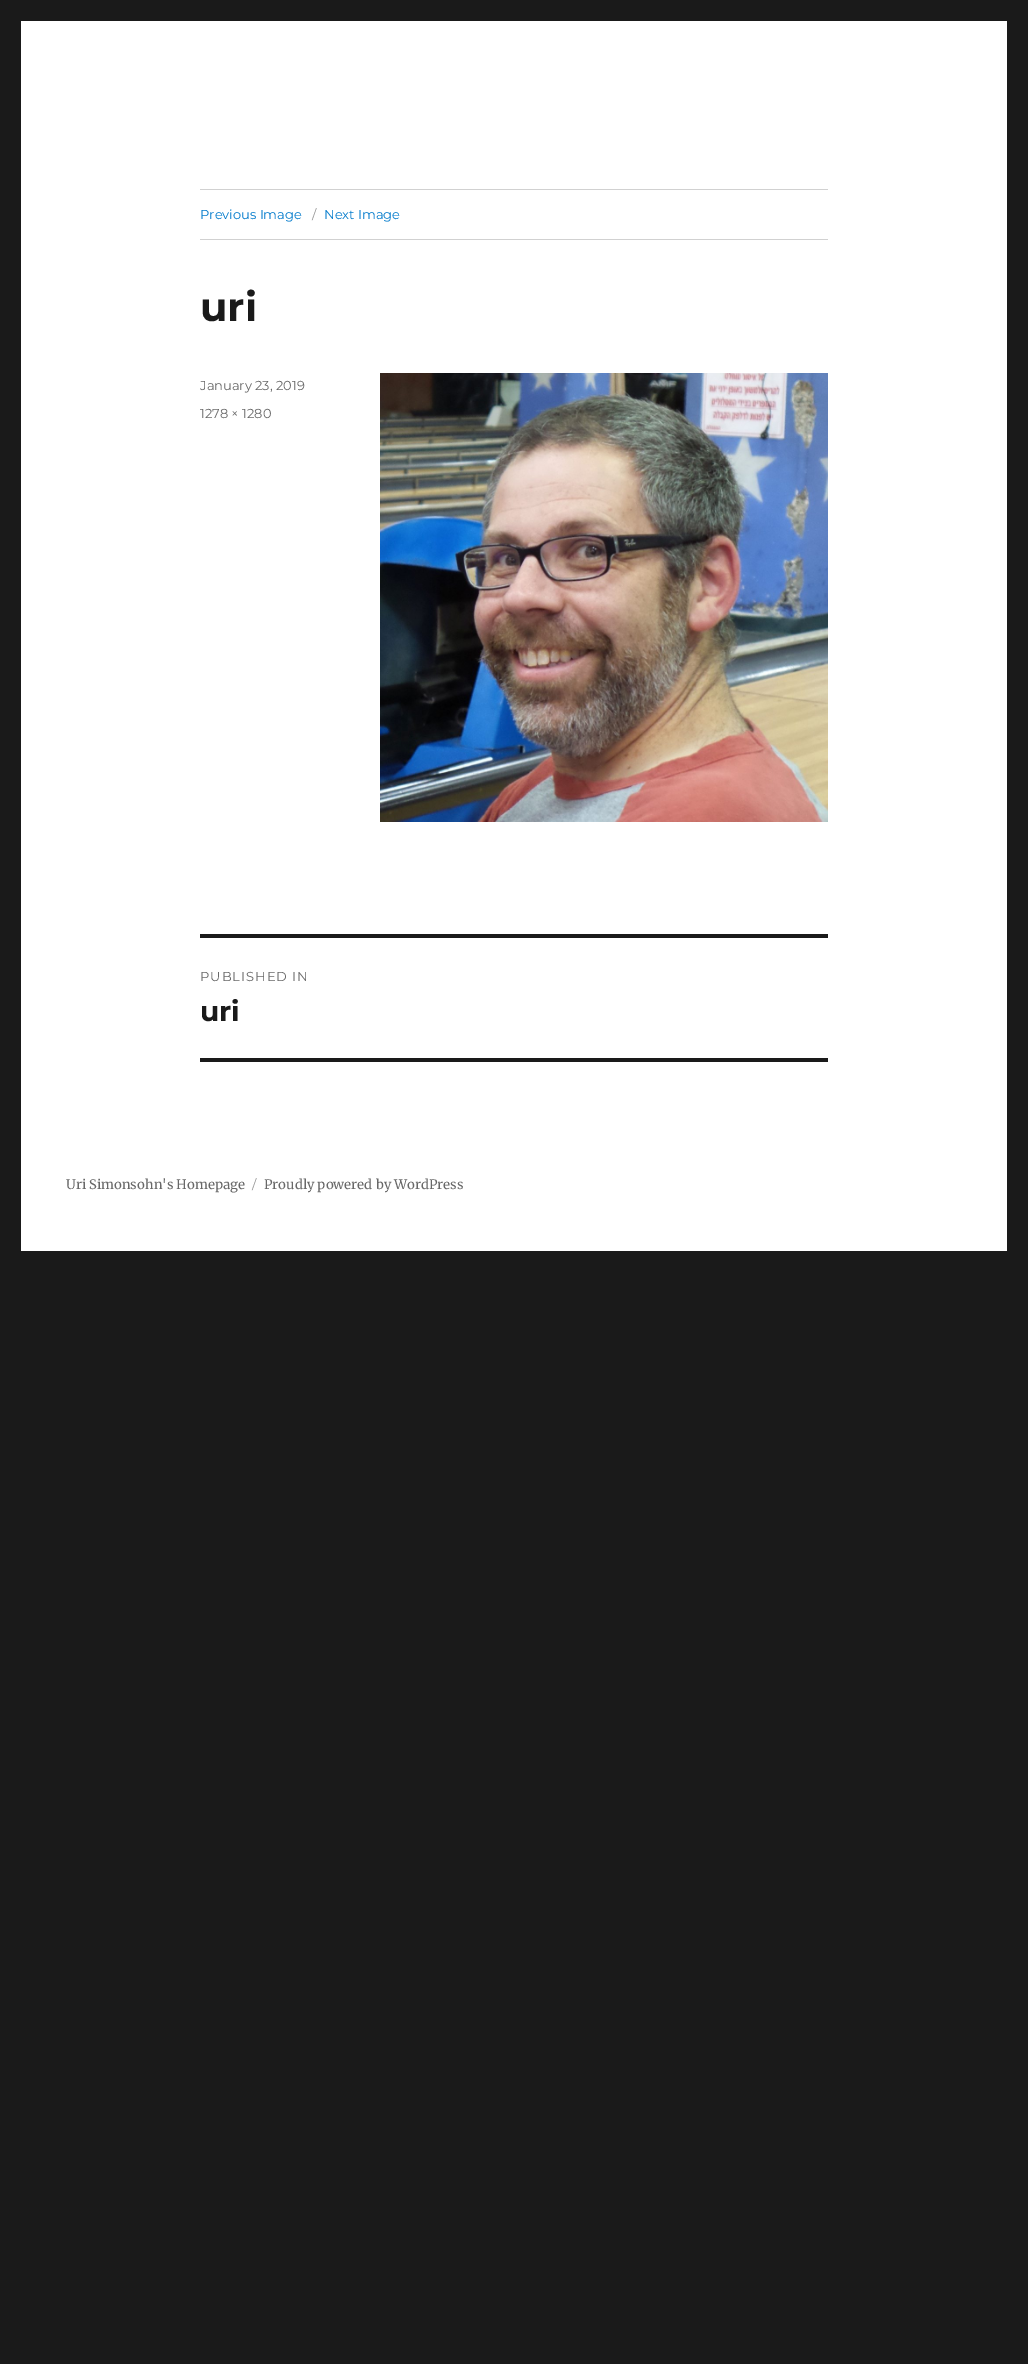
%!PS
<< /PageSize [1028 2364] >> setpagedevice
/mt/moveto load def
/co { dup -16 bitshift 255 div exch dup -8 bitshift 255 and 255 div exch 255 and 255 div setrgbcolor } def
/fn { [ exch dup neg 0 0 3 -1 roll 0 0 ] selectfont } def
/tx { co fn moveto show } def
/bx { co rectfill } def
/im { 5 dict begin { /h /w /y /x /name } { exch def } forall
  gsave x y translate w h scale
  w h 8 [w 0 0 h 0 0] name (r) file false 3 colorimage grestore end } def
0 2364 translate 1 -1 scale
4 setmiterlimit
0 0 1028 2364 16#1A1A1A bx
21 21 986 1230 16#FFFFFF bx
200 189 628 1 16#D1D1D1 bx
200 239 628 1 16#D1D1D1 bx
(media/1.raw) 380 373 448 449 im
200 934 628 4 16#1A1A1A bx
200 1058 628 4 16#1A1A1A bx
(Previous Image) 200 219 /Montserrat-Thin 13 16#007ACC tx
(/) 312 219 /Montserrat-Thin 13 16#959595 tx
(Next Image) 324 219 /Montserrat-Thin 13 16#007ACC tx
(uri) 200 321 /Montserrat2-Thin 40 16#1A1A1A tx
(January 23, 2019) 200 390 /Montserrat-Thin 13 16#686868 tx
(1278 × 1280) 200 418 /Montserrat-Thin 13 16#686868 tx
200 981 mt 1 0 (PUBLISHED IN) ashow
(uri) 200 1021 /Montserrat2-Thin 28 16#1A1A1A tx
(Uri Simonsohn's Homepage) 66 1189 /Merriweather-Regular 13 16#686868 tx
(/) 252 1189 /Montserrat-Thin 13 16#959595 tx
(Proudly powered by WordPress) 264 1189 /Merriweather-Regular 13 16#686868 tx
showpage
